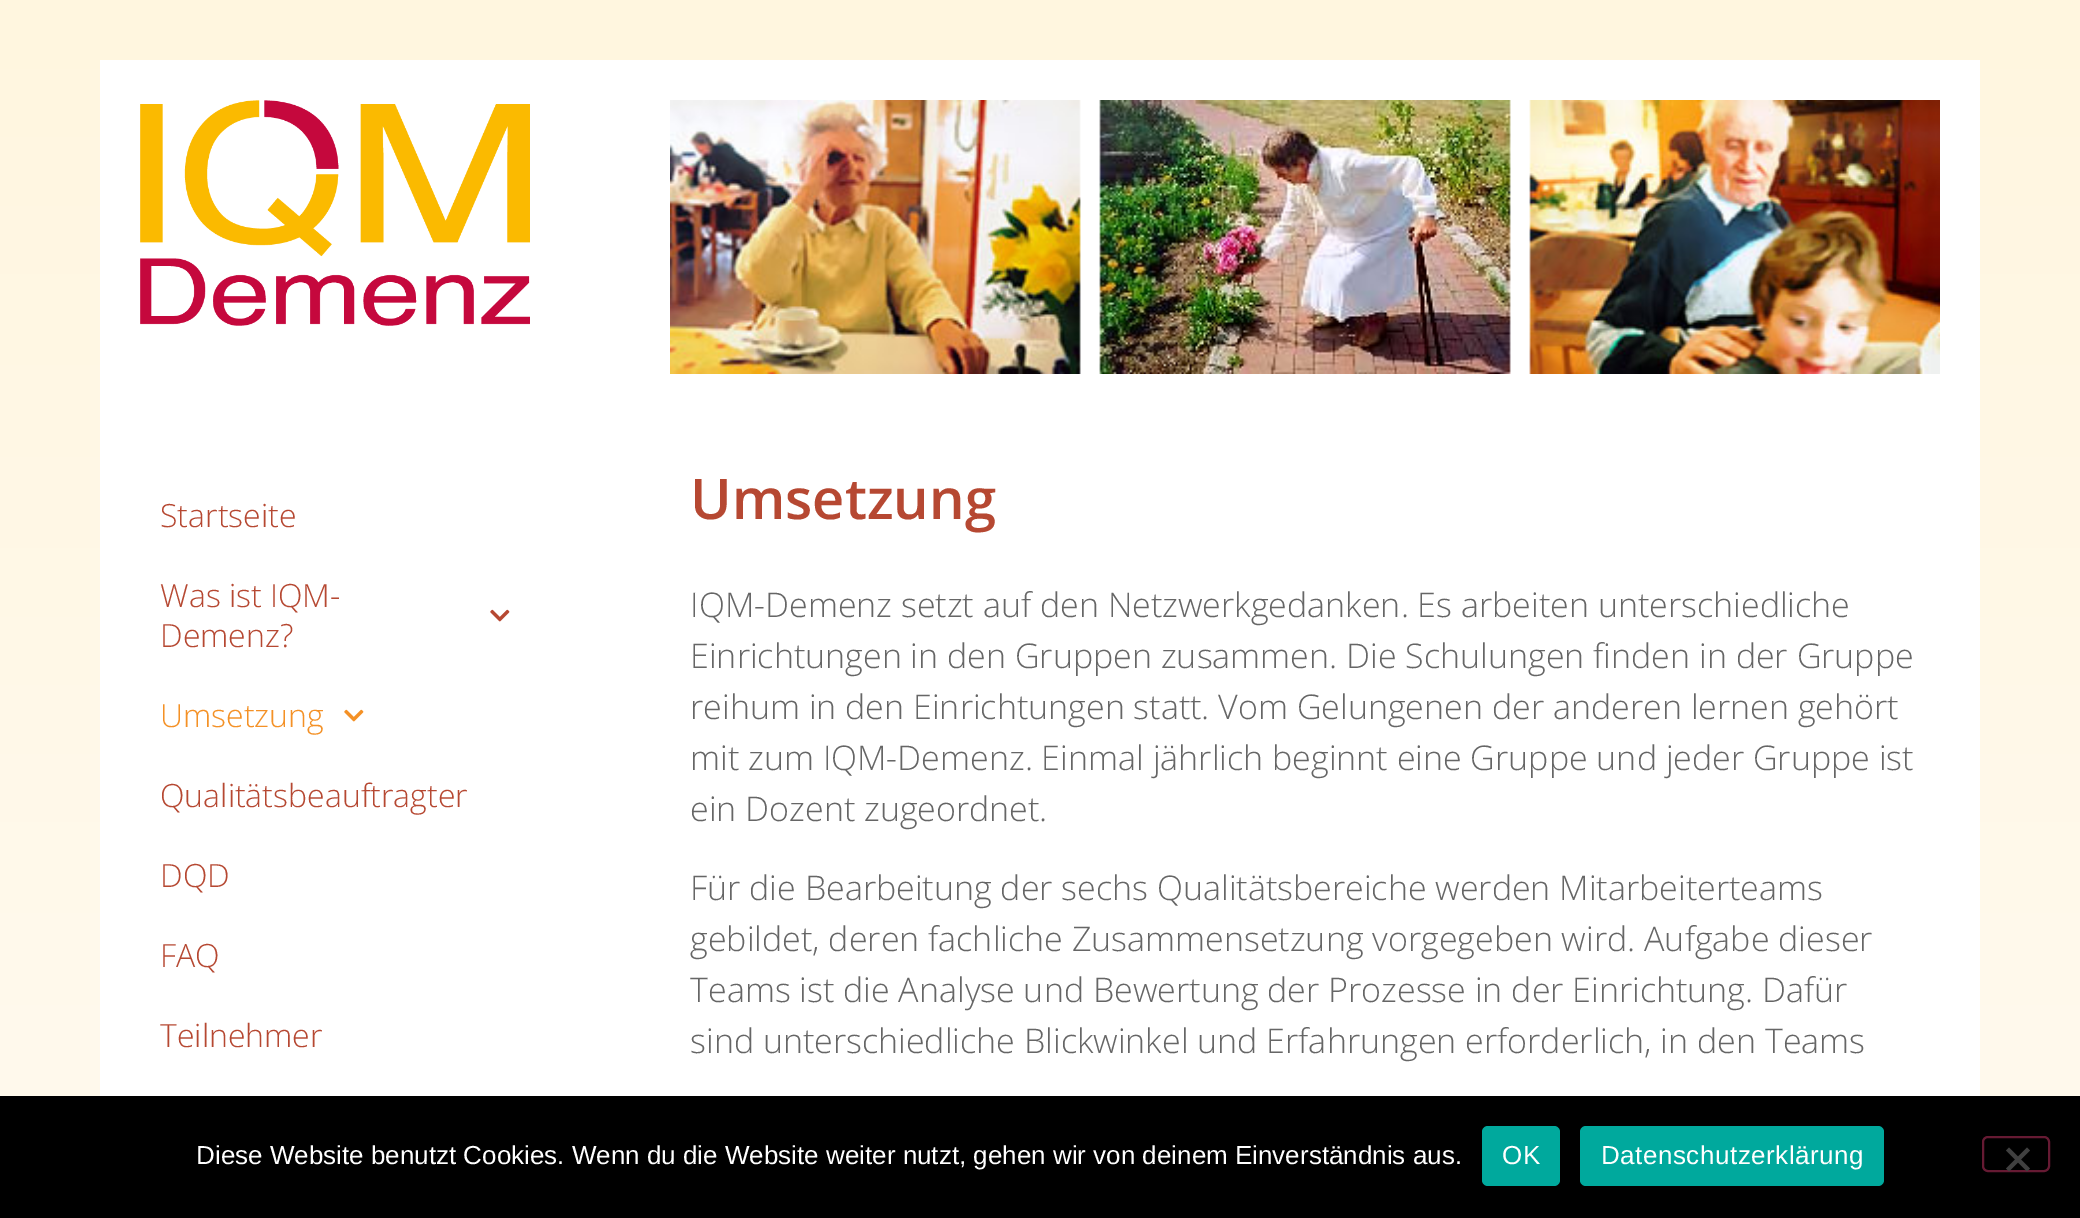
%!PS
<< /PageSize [2080 1218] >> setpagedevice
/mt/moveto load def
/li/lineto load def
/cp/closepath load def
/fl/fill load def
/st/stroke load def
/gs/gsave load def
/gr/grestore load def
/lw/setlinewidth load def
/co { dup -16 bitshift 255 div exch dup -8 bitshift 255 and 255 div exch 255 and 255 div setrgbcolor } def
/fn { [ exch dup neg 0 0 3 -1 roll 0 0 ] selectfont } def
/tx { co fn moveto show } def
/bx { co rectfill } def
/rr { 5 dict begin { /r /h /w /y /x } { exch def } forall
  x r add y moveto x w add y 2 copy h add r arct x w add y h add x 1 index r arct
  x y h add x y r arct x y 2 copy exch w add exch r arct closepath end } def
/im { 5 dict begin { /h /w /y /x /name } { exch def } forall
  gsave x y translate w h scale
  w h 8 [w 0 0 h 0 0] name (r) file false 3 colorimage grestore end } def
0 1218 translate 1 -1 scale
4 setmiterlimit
0 0 2080 1218 16#FFFFFF bx
gs 0 0 mt 2080 0 li 2080 1096 li 0 1096 li cp clip newpath
<< /ShadingType 2 /ColorSpace /DeviceRGB /Coords [1040 0 1040 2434] /Extend [true true] /Function << /FunctionType 2 /Domain [0 1] /C0 [1 .965 .875] /C1 [1 1 1] /N 1 >> >> shfill gr
100 60 1880 1036 16#FFFFFF bx
(media/1.raw) 140 100 390 226 im
(media/2.raw) 670 100 1270 274 im
(media/3.raw) 490 609 20 13 im
(media/4.raw) 344 709 20 13 im
0 1096 2080 122 16#000000 bx
16#00A99D co
1482 1126 78 60 6 rr fl
1580 1126 304 60 6 rr fl
16#661A33 co
2 lw
1983 1137 66 34 5 rr st
16#404040 co
2027 1147.5 mt 2030 1150.5 li 2009 1171.5 li 2006 1168.5 li cp fl
2006 1150.5 mt 2009 1147.5 li 2030 1168.5 li 2027 1171.5 li cp fl
(Startseite) 160 527 /OpenSans-Light 32 16#B64832 tx
(Was ist IQM-) 160 607 /OpenSans-Light 32 16#B64832 tx
(Demenz?) 160 647 /OpenSans-Light 32 16#B64832 tx
(Umsetzung) 160 727 /OpenSans-Light 32 16#F49126 tx
(Qualitätsbeauftragter) 160 807 /OpenSans-Light 32 16#B64832 tx
(DQD) 160 887 /OpenSans-Light 32 16#B64832 tx
(FAQ) 160 967 /OpenSans-Light 32 16#B64832 tx
(Teilnehmer) 160 1047 /OpenSans-Light 32 16#B64832 tx
(Umsetzung) 690 519 /OpenSans-SemiBold 56 16#B64832 tx
(IQM-Demenz setzt auf den Netzwerkgedanken. Es arbeiten unterschiedliche) 690 617 /OpenSans-Light 34 16#666666 tx
(Einrichtungen in den Gruppen zusammen. Die Schulungen finden in der Gruppe) 690 668 /OpenSans-Light 34 16#666666 tx
(reihum in den Einrichtungen statt. Vom Gelungenen der anderen lernen gehört) 690 719 /OpenSans-Light 34 16#666666 tx
(mit zum IQM-Demenz. Einmal jährlich beginnt eine Gruppe und jeder Gruppe ist) 690 770 /OpenSans-Light 34 16#666666 tx
(ein Dozent zugeordnet.) 690 821 /OpenSans-Light 34 16#666666 tx
(Für die Bearbeitung der sechs Qualitätsbereiche werden Mitarbeiterteams) 690 900 /OpenSans-Light 34 16#666666 tx
(gebildet, deren fachliche Zusammensetzung vorgegeben wird. Aufgabe dieser) 690 951 /OpenSans-Light 34 16#666666 tx
(Teams ist die Analyse und Bewertung der Prozesse in der Einrichtung. Dafür) 690 1002 /OpenSans-Light 34 16#666666 tx
(sind unterschiedliche Blickwinkel und Erfahrungen erforderlich, in den Teams) 690 1053 /OpenSans-Light 34 16#666666 tx
(Diese Website benutzt Cookies. Wenn du die Website weiter nutzt, gehen wir von deinem Einverständnis aus.) 196 1164 /LiberationSans-Regular 26 16#FFFFFF tx
1502 1164 mt .5 0 (OK) ashow
1601 1164 mt .5 0 (Datenschutzerklärung) ashow
showpage
